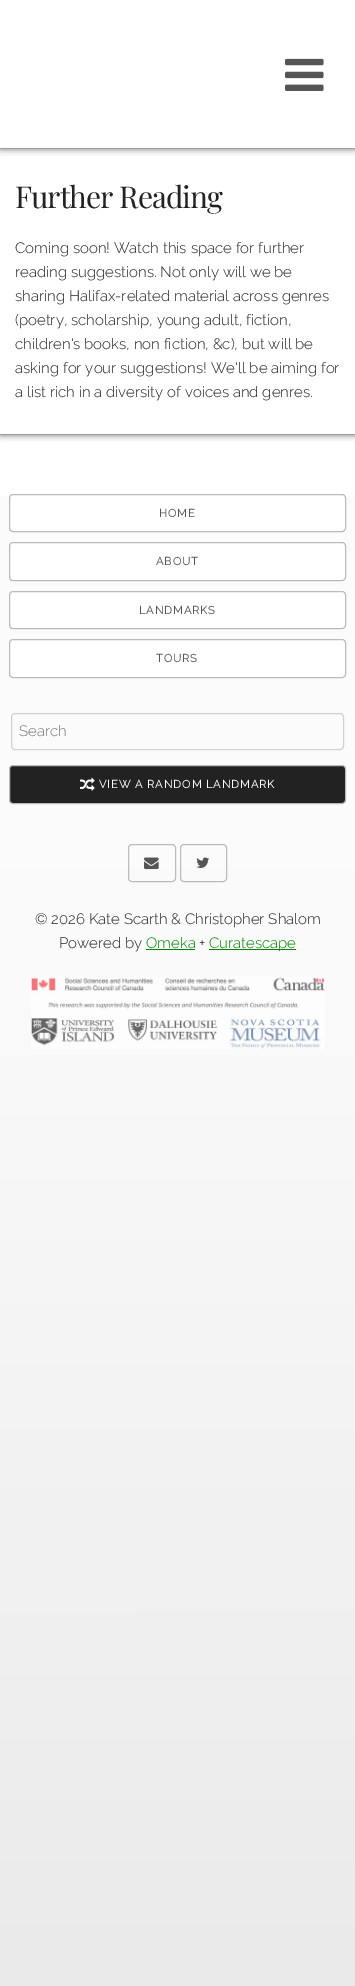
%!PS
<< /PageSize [355 1986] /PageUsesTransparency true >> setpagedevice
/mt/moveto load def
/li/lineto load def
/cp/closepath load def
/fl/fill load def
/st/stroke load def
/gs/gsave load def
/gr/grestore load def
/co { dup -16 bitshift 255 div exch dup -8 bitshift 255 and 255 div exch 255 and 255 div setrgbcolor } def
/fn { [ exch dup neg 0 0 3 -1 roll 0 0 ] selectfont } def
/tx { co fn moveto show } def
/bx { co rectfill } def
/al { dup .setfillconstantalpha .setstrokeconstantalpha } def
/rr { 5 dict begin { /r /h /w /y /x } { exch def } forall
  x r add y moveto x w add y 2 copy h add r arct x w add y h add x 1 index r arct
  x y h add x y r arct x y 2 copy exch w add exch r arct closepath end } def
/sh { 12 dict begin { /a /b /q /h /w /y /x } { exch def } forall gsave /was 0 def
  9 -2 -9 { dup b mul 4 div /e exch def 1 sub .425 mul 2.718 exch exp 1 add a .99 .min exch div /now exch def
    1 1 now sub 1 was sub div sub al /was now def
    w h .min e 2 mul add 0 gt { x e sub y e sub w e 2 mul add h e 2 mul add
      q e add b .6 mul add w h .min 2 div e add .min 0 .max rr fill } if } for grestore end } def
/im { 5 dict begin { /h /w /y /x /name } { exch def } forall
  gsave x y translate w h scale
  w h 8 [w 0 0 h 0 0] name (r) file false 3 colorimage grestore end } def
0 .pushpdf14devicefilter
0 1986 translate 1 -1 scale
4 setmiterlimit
0 0 355 1986 16#FFFFFF bx
gs 0 496 mt 355 496 li 355 1986 li 0 1986 li cp clip newpath
<< /ShadingType 2 /ColorSpace /DeviceRGB /Coords [177 0 178 1986] /Extend [true true] /Function << /FunctionType 3 /Domain [0 1] /Functions [<< /FunctionType 2 /Domain [0 1] /C0 [1 1 1] /C1 [.98 .98 .98] /N 1 >> << /FunctionType 2 /Domain [0 1] /C0 [.98 .98 .98] /C1 [.918 .918 .918] /N 1 >>] /Bounds [.5] /Encode [0 1 0 1] >> >> shfill gr
16#333333 co
0 148 355 286 0 3.5 1 sh
0 148 355 286 16#FFFFFF bx
16#333333 co
0 0 355 148 0 3.5 1 sh
0 0 355 148 16#FFFFFF bx
(media/1.raw) 285 58 39 33 im
9.5 494.5 336 37 3.5 rr gs fl gr
16#BBBBBB co
st
16#FFFFFF co
9.5 542.5 336 38 3.5 rr gs fl gr
16#BBBBBB co
st
16#FFFFFF co
9.5 591.5 336 37 3.5 rr gs fl gr
16#BBBBBB co
st
16#FFFFFF co
9.5 639.5 336 38 3.5 rr gs fl gr
16#BBBBBB co
st
16#D1D1D1 co
11.5 713.5 332 36 3.5 rr st
16#222222 co
9.5 765.5 336 38 3.5 rr gs fl gr
16#BBBBBB co
st
(media/2.raw) 80 777 15 14 im
128.5 844.5 47 37 3.5 rr st
(media/3.raw) 144 857 15 13 im
180.5 844.5 46 37 3.5 rr st
(media/4.raw) 196 857 14 11 im
146 949 49 1 16#008000 bx
209 949 87 1 16#008000 bx
(media/5.raw) 31 977 294 72 im
/PlayfairDisplay-Regular 30 fn
16#222222 co
15 208 mt -1 0 (Further Reading) ashow
(Coming soon! Watch this space for further) 15 253 /Raleway-Thin 15 16#222222 tx
(reading suggestions. Not only will we be) 15 277 /Raleway-Thin 15 16#222222 tx
(sharing Halifax-related material across genres) 15 301 /Raleway-Thin 15 16#222222 tx
(\(poetry, scholarship, young adult, fiction,) 15 325 /Raleway-Thin 15 16#222222 tx
(children's books, non fiction, &c\), but will be) 15 349 /Raleway-Thin 15 16#222222 tx
(asking for your suggestions! We'll be aiming for) 15 373 /Raleway-Thin 15 16#222222 tx
(a list rich in a diversity of voices and genres.) 15 397 /Raleway-Thin 15 16#222222 tx
/Raleway-Bold 11 fn
16#555555 co
159 517 mt 1 0 (HOME) ashow
156 565 mt 1 0 (ABOUT) ashow
139 614 mt 1 0 (LANDMARKS) ashow
156 662 mt 1 0 (TOURS) ashow
(Search) 19 736 /Raleway-Thin 15 16#757575 tx
/Raleway-Bold 11 fn
16#FFFFFF co
99 788 mt 1 0 (VIEW A RANDOM LANDMARK) ashow
(© 2026 Kate Scarth & Christopher Shalom) 35 924 /Raleway-Thin 15 16#222222 tx
(Powered by) 59 948 /Raleway-Thin 15 16#222222 tx
(Omeka) 146 948 /Raleway-Thin 15 16#008000 tx
(+) 199 948 /Raleway-Thin 15 16#222222 tx
(Curatescape) 209 948 /Raleway-Thin 15 16#008000 tx
.poppdf14devicefilter showpage
